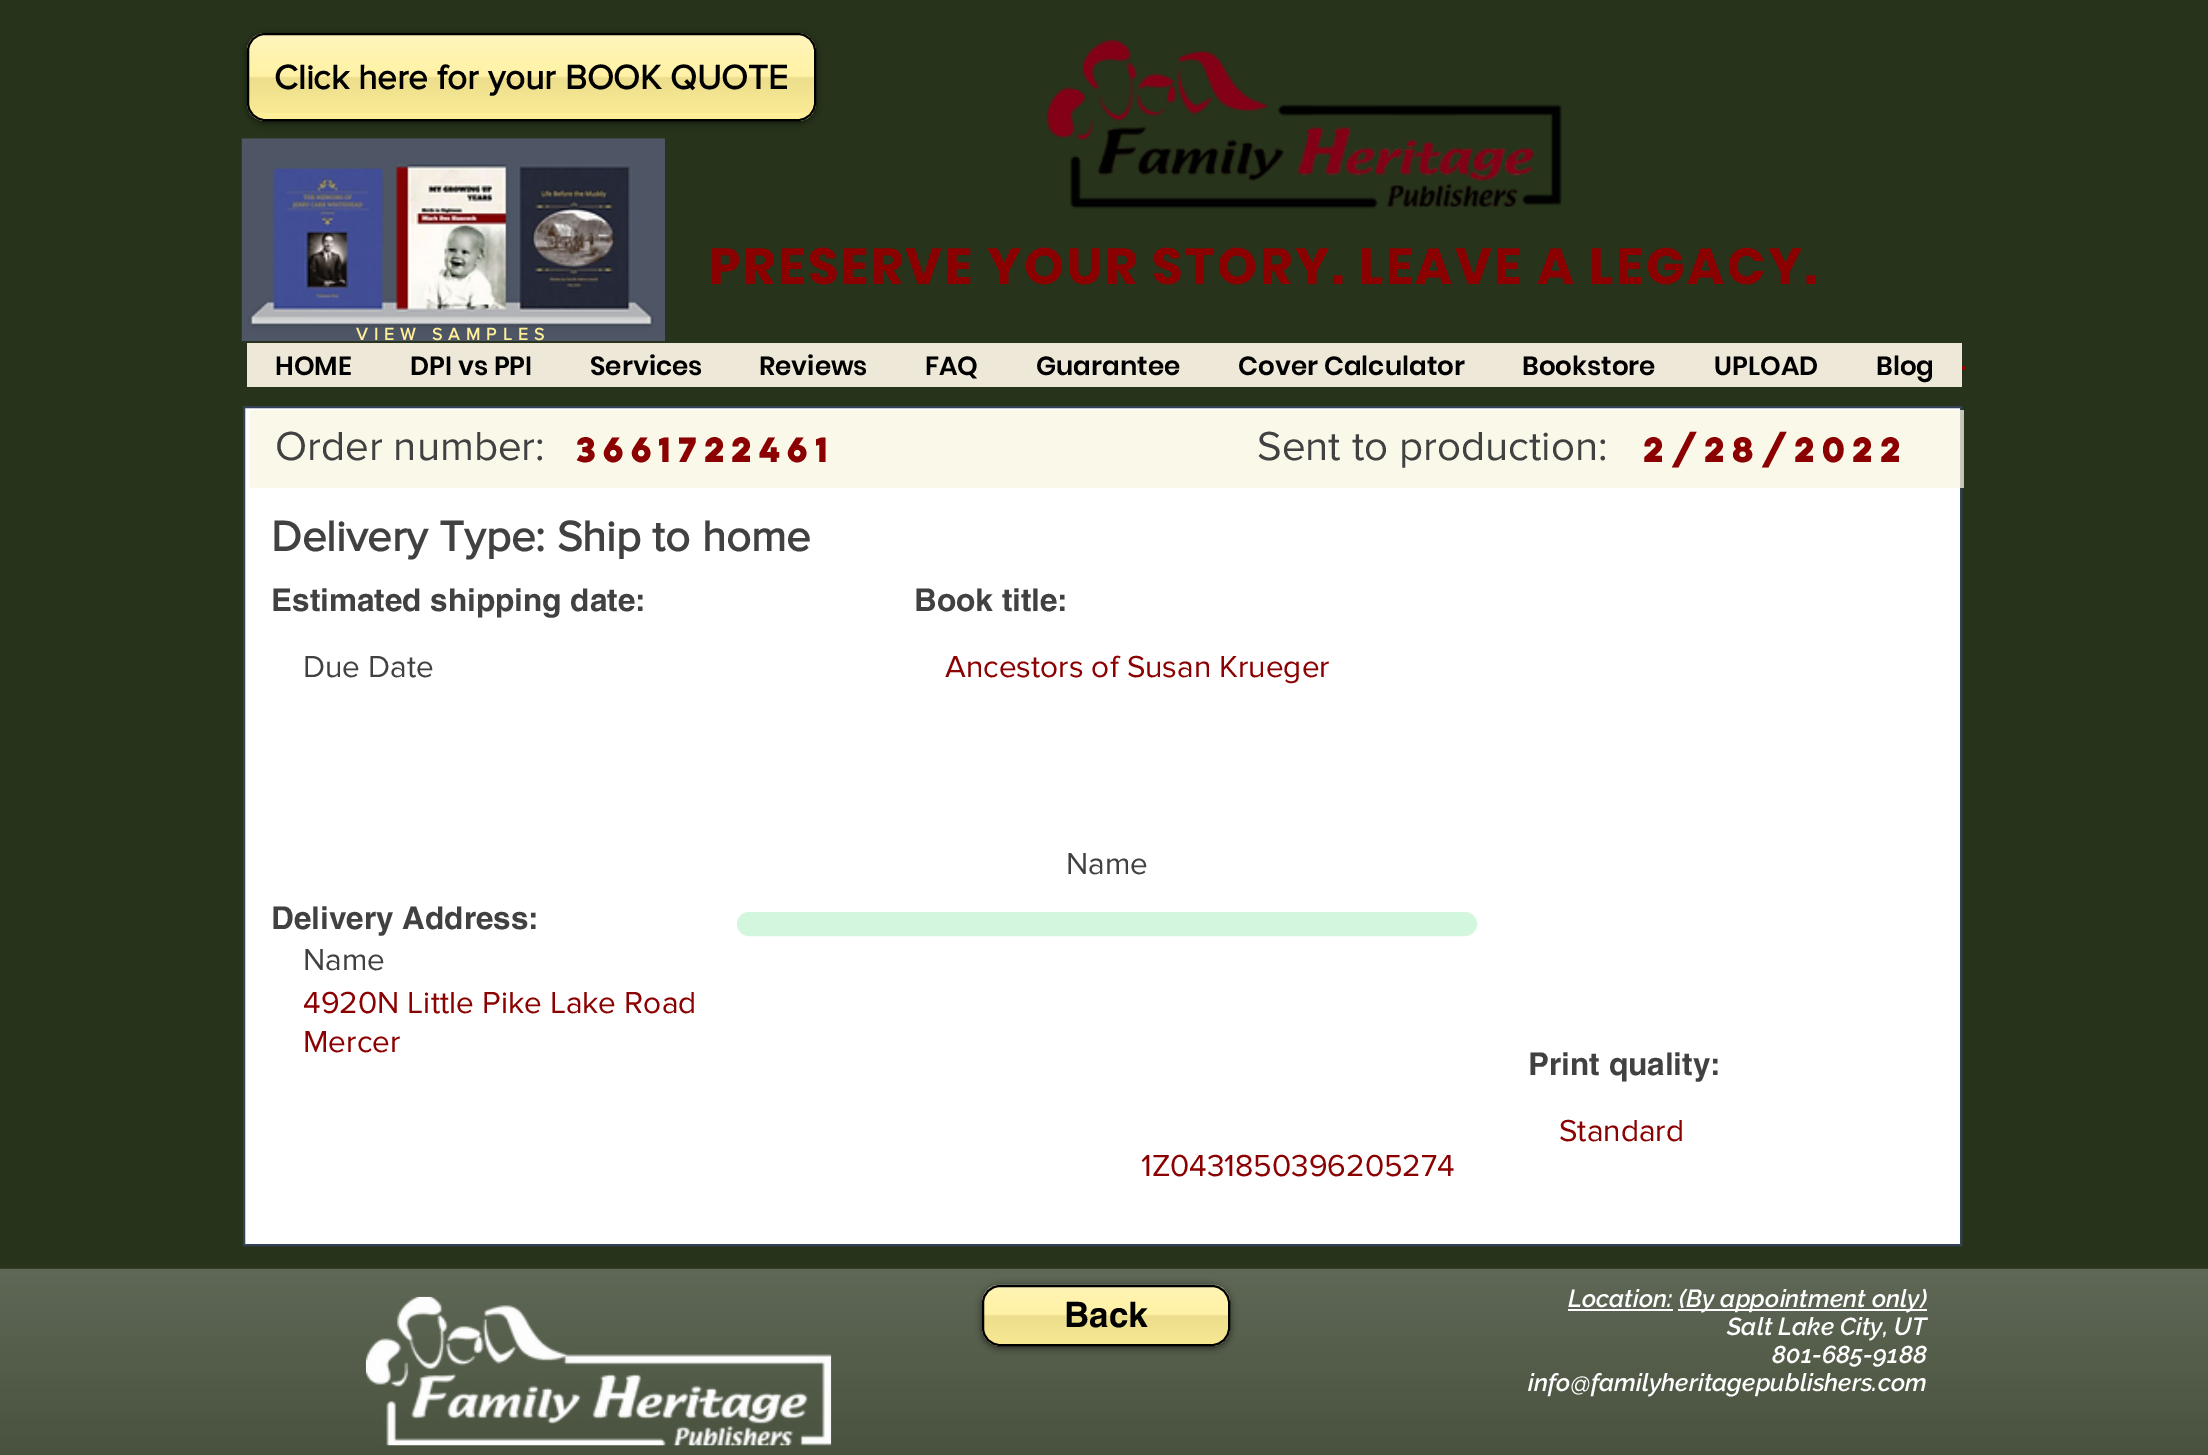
%!PS
<< /PageSize [2208 1455] /PageUsesTransparency true >> setpagedevice
/mt/moveto load def
/li/lineto load def
/cp/closepath load def
/fl/fill load def
/st/stroke load def
/gs/gsave load def
/gr/grestore load def
/lw/setlinewidth load def
/co { dup -16 bitshift 255 div exch dup -8 bitshift 255 and 255 div exch 255 and 255 div setrgbcolor } def
/fn { [ exch dup neg 0 0 3 -1 roll 0 0 ] selectfont } def
/tx { co fn moveto show } def
/bx { co rectfill } def
/al { dup .setfillconstantalpha .setstrokeconstantalpha } def
/rr { 5 dict begin { /r /h /w /y /x } { exch def } forall
  x r add y moveto x w add y 2 copy h add r arct x w add y h add x 1 index r arct
  x y h add x y r arct x y 2 copy exch w add exch r arct closepath end } def
/sh { 12 dict begin { /a /b /q /h /w /y /x } { exch def } forall gsave /was 0 def
  9 -2 -9 { dup b mul 4 div /e exch def 1 sub .425 mul 2.718 exch exp 1 add a .99 .min exch div /now exch def
    1 1 now sub 1 was sub div sub al /was now def
    w h .min e 2 mul add 0 gt { x e sub y e sub w e 2 mul add h e 2 mul add
      q e add b .6 mul add w h .min 2 div e add .min 0 .max rr fill } if } for grestore end } def
/im { 5 dict begin { /h /w /y /x /name } { exch def } forall
  gsave x y translate w h scale
  w h 8 [w 0 0 h 0 0] name (r) file false 3 colorimage grestore end } def
0 .pushpdf14devicefilter
0 1455 translate 1 -1 scale
4 setmiterlimit
0 0 2208 1455 16#27331B bx
16#000000 co
247 35 569 88 18 3.5 .6 sh
16#FFEF98 co
247 33 569 88 18 rr fl
(media/1.raw) 247 33 569 80 im
16#000000 co
2 lw
248 34 567 86 17 rr st
(media/2.raw) 1046 39 516 170 im
(media/3.raw) 241 138 424 204 im
247 343 1715 44 16#EEE8D8 bx
1962 366 3 4 16#8B0000 bx
16#FFFFFF co
244 407 mt 1961 407 li 1961 1245 li 244 1245 li cp gs fl gr
16#324158 co
st
0.75 al
250 410 1714 78 16#F7F5E1 bx
1 al
16#D2F6DE co
5 lw
739.5 914.5 735 19 9.5 rr st
742 917 730 14 7 rr fl
(media/4.raw) 0 1268 2208 187 im
(media/5.raw) 365 1296 467 150 im
16#000000 co
982 1286 248 62 18 3.5 .6 sh
16#FFEF98 co
982 1285 248 61 18 rr fl
(media/6.raw) 982 1284 248 61 im
16#000000 co
2 lw
983 1286 246 59 17 rr st
1568 1309 105 2 16#FFFFFF bx
1678 1309 249 2 16#FFFFFF bx
(Click here for your BOOK QUOTE) 274 89 /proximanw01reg-Bold 35 16#000000 tx
/Poppins-Bold 50.75 fn
16#8B0000 co
709 284 mt 2.55 0 (PRESERVE YOUR STORY. LEAVE A LEGACY.) ashow
/proximanw01reg-Bold 17.5 fn
16#FFEF98 co
356 340 mt 6.1 0 (VIEW SAMPLES) ashow
(HOME) 275 375 /Poppins-SemiBold 26.25 16#000000 tx
(DPI vs PPI) 410 375 /Poppins-SemiBold 26.25 16#000000 tx
(Services) 590 375 /Poppins-SemiBold 26.25 16#000000 tx
(Reviews) 759 375 /Poppins-SemiBold 26.25 16#000000 tx
(FAQ) 925 375 /Poppins-SemiBold 26.25 16#000000 tx
(Guarantee) 1036 375 /Poppins-SemiBold 26.25 16#000000 tx
(Cover Calculator) 1238 375 /Poppins-SemiBold 26.25 16#000000 tx
(Bookstore) 1522 375 /Poppins-SemiBold 26.25 16#000000 tx
(UPLOAD) 1714 375 /Poppins-SemiBold 26.25 16#000000 tx
(Blog) 1876 375 /Poppins-SemiBold 26.25 16#000000 tx
(Order number:) 275 460 /proximanw01reg-Regular 42 16#414141 tx
(3661722461) 576 462 /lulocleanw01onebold-Bold 31.5 16#8B0000 tx
(Sent to production:) 1257 460 /proximanw01reg-Regular 42 16#414141 tx
(2/28/2022) 1643 462 /lulocleanw01onebold-Bold 31.5 16#8B0000 tx
(Delivery Type: Ship to home) 271 551 /proximanw01reg-Bold 43.75 16#414141 tx
(Estimated shipping date:) 271 611 /helvetica-Bold 31.5 16#414141 tx
(Due Date) 303 677 /proximanw01reg-Regular 31.5 16#414141 tx
(Book title:) 914 611 /helvetica-Bold 31.5 16#414141 tx
(Ancestors of Susan Krueger) 945 677 /proximanw01reg-Regular 31.5 16#8B0000 tx
(Name) 1066 874 /proximanw01reg-Regular 31.5 16#414141 tx
(Delivery Address:) 271 929 /helvetica-Bold 31.5 16#414141 tx
(4920N Little Pike Lake Road) 303 1013 /proximanw01reg-Regular 31.5 16#8B0000 tx
(Name) 303 970 /proximanw01reg-Regular 31.5 16#414141 tx
(Mercer) 303 1052 /proximanw01reg-Regular 31.5 16#8B0000 tx
(Print quality:) 1528 1075 /helvetica-Bold 31.5 16#414141 tx
(Standard) 1559 1141 /proximanw01reg-Regular 31.5 16#8B0000 tx
(1Z0431850396205274) 1141 1176 /proximanw01reg-Regular 31.5 16#8B0000 tx
(Back) 1064 1327 /helvetica-Bold 35 16#000000 tx
(Location:) 1568 1307 /Raleway-SemiBoldItalic 24.5 16#FFFFFF tx
(\(By appointment only\)) 1679 1307 /Raleway-SemiBoldItalic 24.5 16#FFFFFF tx
(Salt Lake City, UT) 1727 1335 /Raleway-SemiBoldItalic 24.5 16#FFFFFF tx
(801-685-9188) 1772 1363 /Raleway-SemiBoldItalic 24.5 16#FFFFFF tx
(info@familyheritagepublishers.com) 1528 1391 /Raleway-SemiBoldItalic 24.5 16#FFFFFF tx
.poppdf14devicefilter showpage
